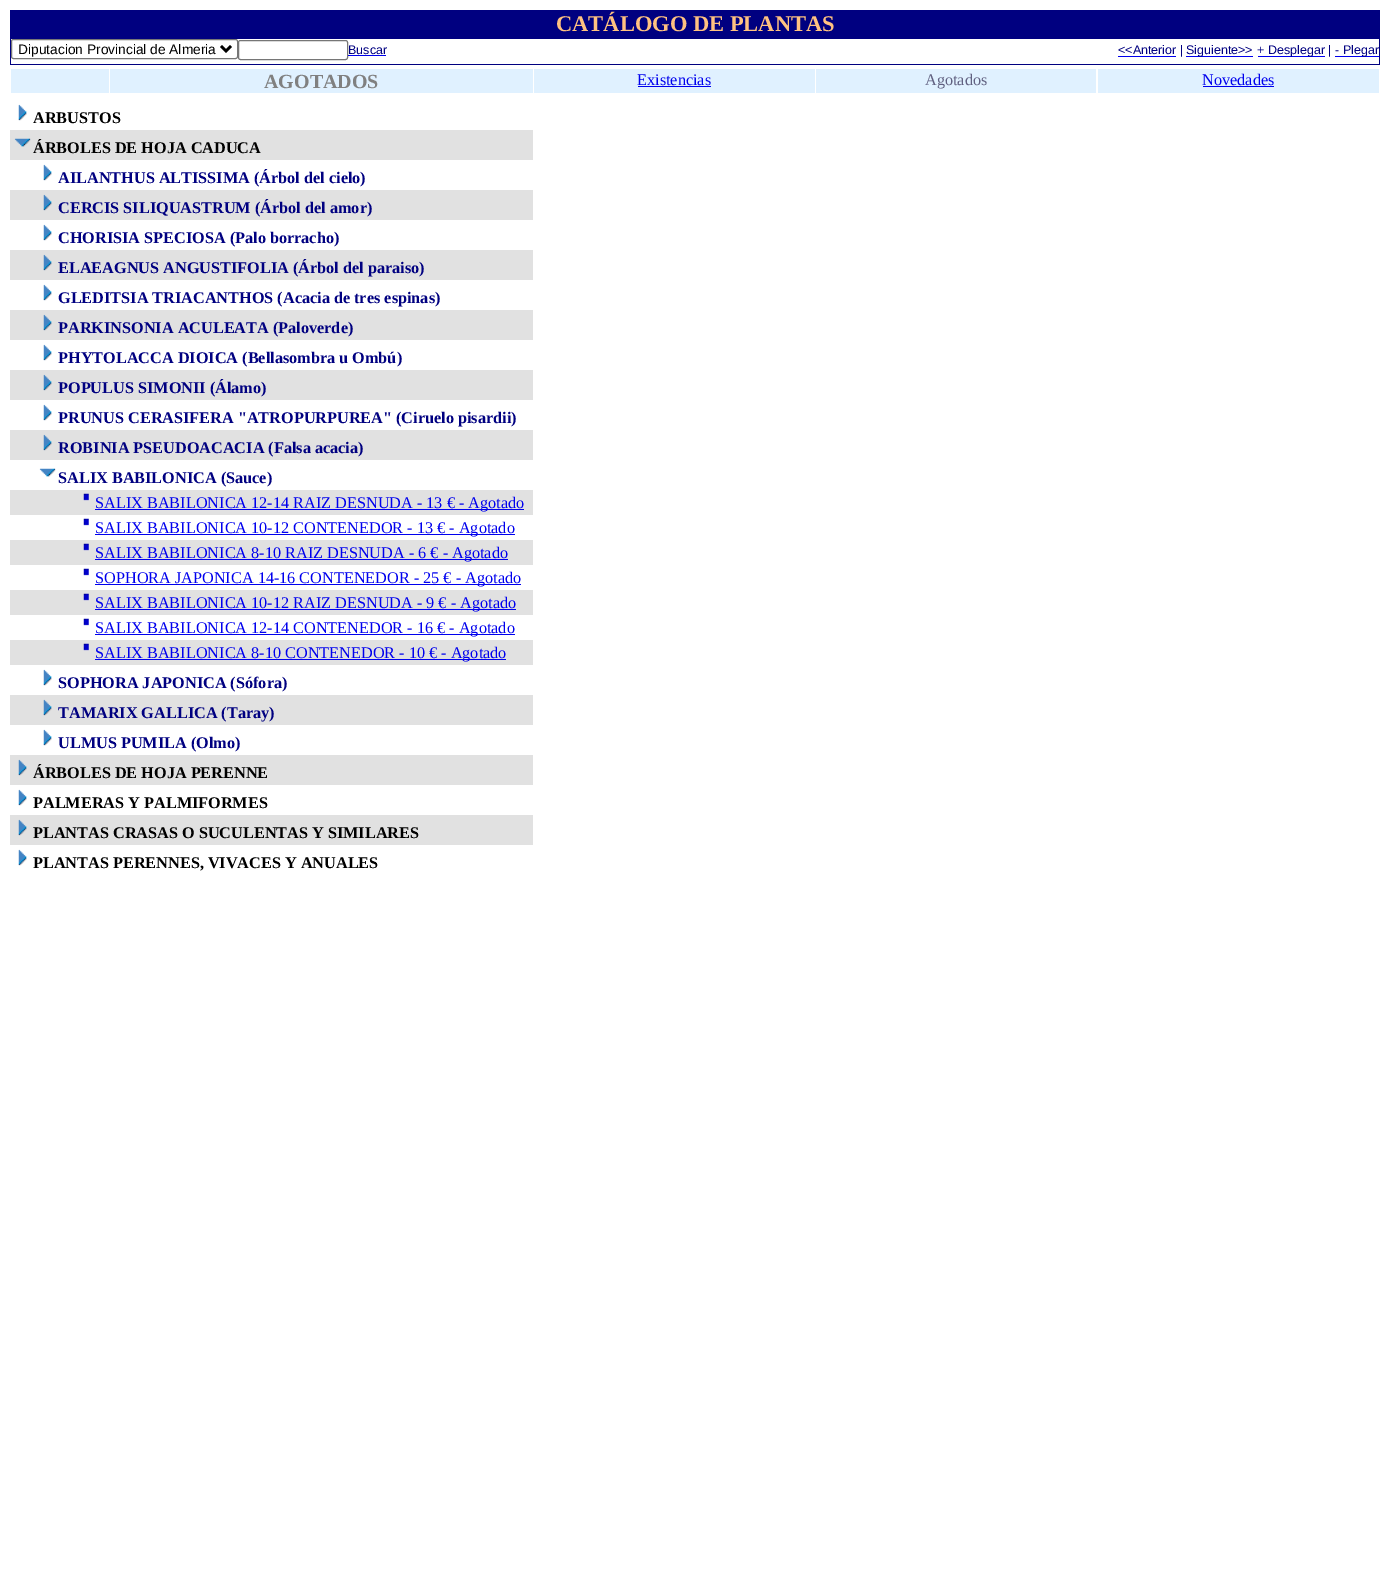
%!PS
<< /PageSize [1389 1583] >> setpagedevice
/mt/moveto load def
/li/lineto load def
/st/stroke load def
/lw/setlinewidth load def
/co { dup -16 bitshift 255 div exch dup -8 bitshift 255 and 255 div exch 255 and 255 div setrgbcolor } def
/fn { [ exch dup neg 0 0 3 -1 roll 0 0 ] selectfont } def
/tx { co fn moveto show } def
/bx { co rectfill } def
/rr { 5 dict begin { /r /h /w /y /x } { exch def } forall
  x r add y moveto x w add y 2 copy h add r arct x w add y h add x 1 index r arct
  x y h add x y r arct x y 2 copy exch w add exch r arct closepath end } def
/im { 5 dict begin { /h /w /y /x /name } { exch def } forall
  gsave x y translate w h scale
  w h 8 [w 0 0 h 0 0] name (r) file false 3 colorimage grestore end } def
0 1583 translate 1 -1 scale
4 setmiterlimit
0 0 1389 1583 16#FFFFFF bx
10 10 1370 55 16#000080 bx
11 39 1368 25 16#FFFFFF bx
16#767676 co
11.5 39.5 226 19 2 rr st
16#000000 co
2.5 lw
221 46 mt 226 51 li 231 46 li st
16#767676 co
1 lw
238.5 40.5 109 19 2 rr st
348 55 38 1 16#0000EE bx
1118 56 58 1 16#0000EE bx
1186 56 67 1 16#0000EE bx
1258 56 67 1 16#0000EE bx
1335 56 44 1 16#0000EE bx
11 69 98 24 16#E0F1FF bx
110 69 423 24 16#E0F1FF bx
534 69 281 24 16#E0F1FF bx
638 86 73 1 16#0000EE bx
816 69 280 24 16#E0F1FF bx
1098 69 281 24 16#E0F1FF bx
1203 86 71 1 16#0000EE bx
(media/1.raw) 18 104 9 17 im
10 130 523 30 16#E1E1E1 bx
(media/2.raw) 14 138 17 9 im
(media/1.raw) 43 164 9 17 im
10 190 523 30 16#E1E1E1 bx
(media/3.raw) 43 194 9 17 im
(media/1.raw) 43 224 9 17 im
10 250 523 30 16#E1E1E1 bx
(media/3.raw) 43 254 9 17 im
(media/4.raw) 43 284 9 17 im
10 310 523 30 16#E1E1E1 bx
(media/3.raw) 43 314 9 17 im
(media/1.raw) 43 344 9 17 im
10 370 523 30 16#E1E1E1 bx
(media/3.raw) 43 374 9 17 im
(media/1.raw) 43 404 9 17 im
10 430 523 30 16#E1E1E1 bx
(media/3.raw) 43 434 9 17 im
(media/5.raw) 39 468 17 9 im
10 490 523 25 16#E1E1E1 bx
(media/6.raw) 83 493 6 8 im
95 509 429 1 16#0000EE bx
(media/7.raw) 83 518 6 8 im
95 534 420 1 16#0000EE bx
10 540 523 25 16#E1E1E1 bx
(media/6.raw) 83 543 6 8 im
95 559 413 1 16#0000EE bx
(media/7.raw) 83 568 6 8 im
95 584 426 1 16#0000EE bx
10 590 523 25 16#E1E1E1 bx
(media/6.raw) 83 593 6 8 im
95 609 421 1 16#0000EE bx
(media/7.raw) 83 618 6 8 im
95 634 420 1 16#0000EE bx
10 640 523 25 16#E1E1E1 bx
(media/6.raw) 83 643 6 8 im
95 659 411 1 16#0000EE bx
(media/1.raw) 43 669 9 17 im
10 695 523 30 16#E1E1E1 bx
(media/3.raw) 43 699 9 17 im
(media/1.raw) 43 729 9 17 im
10 755 523 30 16#E1E1E1 bx
(media/3.raw) 18 759 9 17 im
(media/1.raw) 18 789 9 17 im
10 815 523 30 16#E1E1E1 bx
(media/3.raw) 18 819 9 17 im
(media/1.raw) 18 849 9 17 im
(CATÁLOGO DE PLANTAS) 556 31 /LiberationSerif-Bold 22.5 16#FFC281 tx
(Diputacion Provincial de Almeria) 18 54 /LiberationSans-Regular 13.75 16#000000 tx
(Buscar) 348 54 /LiberationSans-Regular 12.5 16#000080 tx
(<<Anterior |) 1118 54 /LiberationSans-Regular 12.5 16#000080 tx
(Siguiente>>) 1186 54 /LiberationSans-Regular 12.5 16#000080 tx
(+ Desplegar |) 1257 54 /LiberationSans-Regular 12.5 16#000080 tx
(- Plegar) 1335 54 /LiberationSans-Regular 12.5 16#000080 tx
(AGOTADOS) 264 88 /LiberationSerif-Bold 20 16#808080 tx
(Existencias) 637 85 /LiberationSerif-Regular 16.25 16#0000EE tx
(Agotados) 925 85 /LiberationSerif-Regular 16.25 16#616181 tx
(Novedades) 1202 85 /LiberationSerif-Regular 16.25 16#0000EE tx
(ARBUSTOS) 33 123 /LiberationSerif-Bold 16.25 16#000000 tx
(ÁRBOLES DE HOJA CADUCA) 33 153 /LiberationSerif-Bold 16.25 16#000000 tx
(AILANTHUS ALTISSIMA \(Árbol del cielo\)) 58 183 /LiberationSerif-Bold 16.25 16#000080 tx
(CERCIS SILIQUASTRUM \(Árbol del amor\)) 58 213 /LiberationSerif-Bold 16.25 16#000080 tx
(CHORISIA SPECIOSA \(Palo borracho\)) 58 243 /LiberationSerif-Bold 16.25 16#000080 tx
(ELAEAGNUS ANGUSTIFOLIA \(Árbol del paraiso\)) 58 273 /LiberationSerif-Bold 16.25 16#000080 tx
(GLEDITSIA TRIACANTHOS \(Acacia de tres espinas\)) 58 303 /LiberationSerif-Bold 16.25 16#000080 tx
(PARKINSONIA ACULEATA \(Paloverde\)) 58 333 /LiberationSerif-Bold 16.25 16#000080 tx
(PHYTOLACCA DIOICA \(Bellasombra u Ombú\)) 58 363 /LiberationSerif-Bold 16.25 16#000080 tx
(POPULUS SIMONII \(Álamo\)) 58 393 /LiberationSerif-Bold 16.25 16#000080 tx
(PRUNUS CERASIFERA "ATROPURPUREA" \(Ciruelo pisardii\)) 58 423 /LiberationSerif-Bold 16.25 16#000080 tx
(ROBINIA PSEUDOACACIA \(Falsa acacia\)) 58 453 /LiberationSerif-Bold 16.25 16#000080 tx
(SALIX BABILONICA \(Sauce\)) 58 483 /LiberationSerif-Bold 16.25 16#000080 tx
(SALIX BABILONICA 12-14 RAIZ DESNUDA - 13 € - Agotado) 95 508 /LiberationSerif-Regular 16.25 16#0000EE tx
(SALIX BABILONICA 10-12 CONTENEDOR - 13 € - Agotado) 95 533 /LiberationSerif-Regular 16.25 16#0000EE tx
(SALIX BABILONICA 8-10 RAIZ DESNUDA - 6 € - Agotado) 95 558 /LiberationSerif-Regular 16.25 16#0000EE tx
(SOPHORA JAPONICA 14-16 CONTENEDOR - 25 € - Agotado) 95 583 /LiberationSerif-Regular 16.25 16#0000EE tx
(SALIX BABILONICA 10-12 RAIZ DESNUDA - 9 € - Agotado) 95 608 /LiberationSerif-Regular 16.25 16#0000EE tx
(SALIX BABILONICA 12-14 CONTENEDOR - 16 € - Agotado) 95 633 /LiberationSerif-Regular 16.25 16#0000EE tx
(SALIX BABILONICA 8-10 CONTENEDOR - 10 € - Agotado) 95 658 /LiberationSerif-Regular 16.25 16#0000EE tx
(SOPHORA JAPONICA \(Sófora\)) 58 688 /LiberationSerif-Bold 16.25 16#000080 tx
(TAMARIX GALLICA \(Taray\)) 58 718 /LiberationSerif-Bold 16.25 16#000080 tx
(ULMUS PUMILA \(Olmo\)) 58 748 /LiberationSerif-Bold 16.25 16#000080 tx
(ÁRBOLES DE HOJA PERENNE) 33 778 /LiberationSerif-Bold 16.25 16#000000 tx
(PALMERAS Y PALMIFORMES) 33 808 /LiberationSerif-Bold 16.25 16#000000 tx
(PLANTAS CRASAS O SUCULENTAS Y SIMILARES) 33 838 /LiberationSerif-Bold 16.25 16#000000 tx
(PLANTAS PERENNES, VIVACES Y ANUALES) 33 868 /LiberationSerif-Bold 16.25 16#000000 tx
showpage
